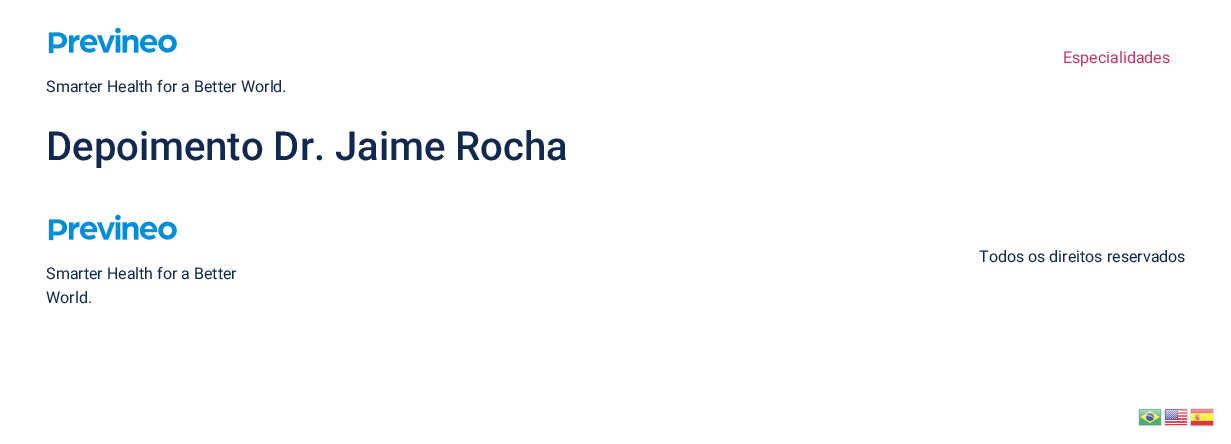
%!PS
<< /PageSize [1231 444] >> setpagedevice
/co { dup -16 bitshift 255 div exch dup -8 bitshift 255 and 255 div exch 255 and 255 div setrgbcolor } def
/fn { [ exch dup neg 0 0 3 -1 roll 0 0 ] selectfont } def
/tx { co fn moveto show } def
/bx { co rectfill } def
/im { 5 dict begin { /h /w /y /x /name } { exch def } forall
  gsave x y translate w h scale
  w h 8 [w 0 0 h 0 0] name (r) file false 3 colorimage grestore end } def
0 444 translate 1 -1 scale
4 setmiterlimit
0 0 1231 444 16#FFFFFF bx
(media/1.raw) 48 27 129 27 im
(media/1.raw) 48 214 129 27 im
(media/2.raw) 1138 408 24 19 im
(media/3.raw) 1164 408 24 19 im
(media/4.raw) 1190 408 24 19 im
(Especialidades) 1063 63 /Roboto-Regular 16 16#CC3366 tx
(Smarter Health for a Better World.) 46 92 /Roboto-Regular 16 16#112950 tx
(Depoimento Dr. Jaime Rocha) 46 160 /Roboto-Medium 40 16#112950 tx
(Todos os direitos reservados) 979 262 /Roboto-Regular 16 16#112950 tx
(Smarter Health for a Better) 46 279 /Roboto-Regular 16 16#112950 tx
(World.) 46 303 /Roboto-Regular 16 16#112950 tx
showpage
